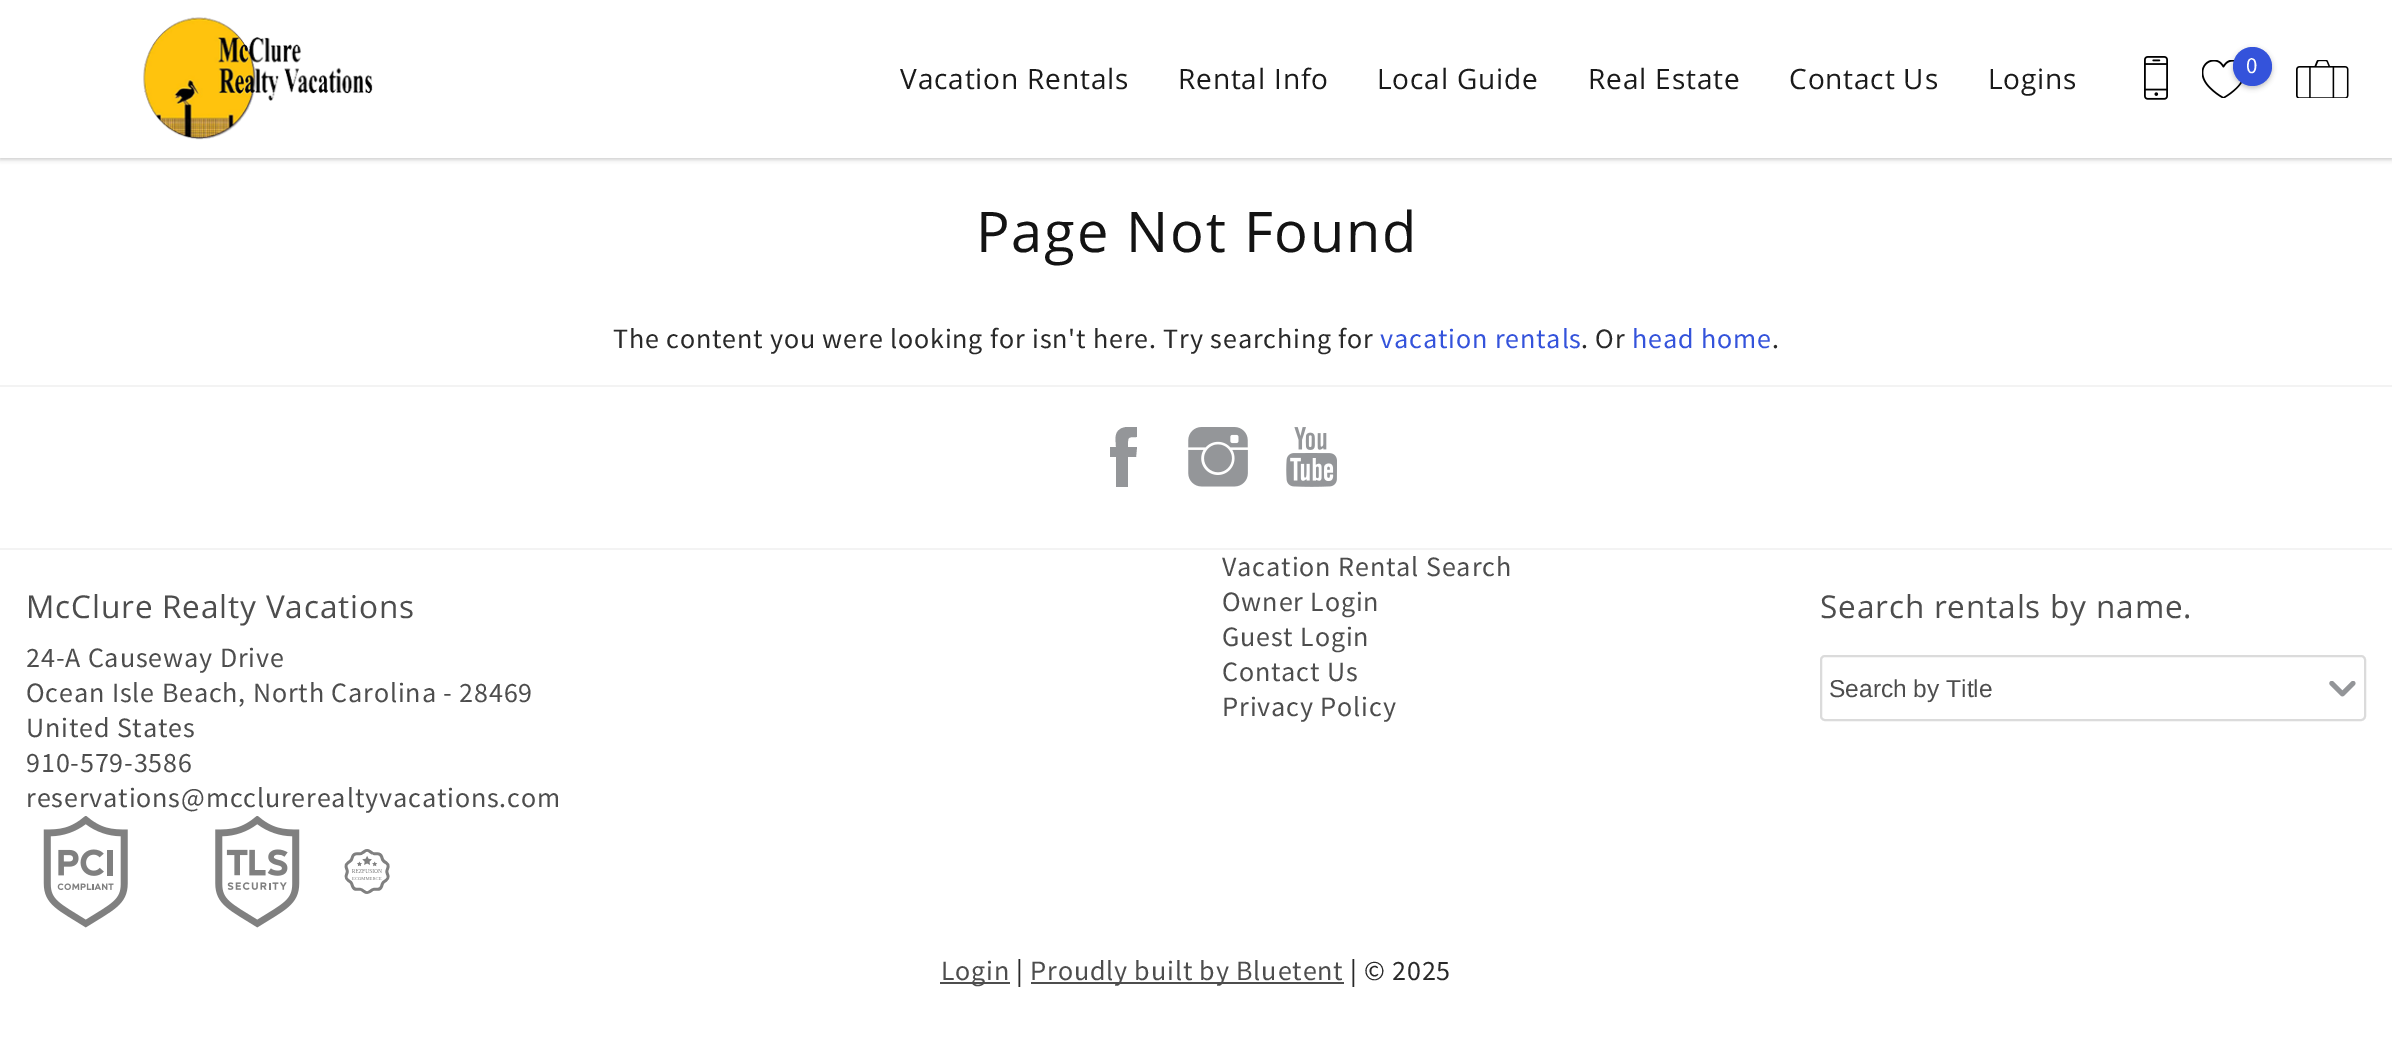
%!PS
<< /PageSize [2392 1059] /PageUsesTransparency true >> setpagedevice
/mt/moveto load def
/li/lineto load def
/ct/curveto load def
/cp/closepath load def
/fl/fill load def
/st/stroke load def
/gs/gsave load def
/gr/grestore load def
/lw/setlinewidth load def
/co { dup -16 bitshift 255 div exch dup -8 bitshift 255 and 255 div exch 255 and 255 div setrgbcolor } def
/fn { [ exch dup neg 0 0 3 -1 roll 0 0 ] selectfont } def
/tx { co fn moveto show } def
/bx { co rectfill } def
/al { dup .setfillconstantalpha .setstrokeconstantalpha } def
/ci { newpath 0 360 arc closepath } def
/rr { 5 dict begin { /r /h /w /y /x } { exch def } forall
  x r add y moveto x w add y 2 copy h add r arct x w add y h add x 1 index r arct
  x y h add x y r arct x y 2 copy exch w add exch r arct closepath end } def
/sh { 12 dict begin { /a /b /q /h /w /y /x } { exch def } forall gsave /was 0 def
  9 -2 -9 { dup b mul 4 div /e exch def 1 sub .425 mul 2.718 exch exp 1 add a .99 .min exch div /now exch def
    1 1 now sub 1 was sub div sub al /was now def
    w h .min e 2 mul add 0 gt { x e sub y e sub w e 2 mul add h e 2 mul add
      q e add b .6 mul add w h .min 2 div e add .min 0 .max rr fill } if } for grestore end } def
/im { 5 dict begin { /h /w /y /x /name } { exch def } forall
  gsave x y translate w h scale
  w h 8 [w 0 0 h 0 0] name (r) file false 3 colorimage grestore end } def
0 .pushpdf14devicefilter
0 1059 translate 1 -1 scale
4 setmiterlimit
0 0 2392 1059 16#FFFFFF bx
16#111111 co
0 2 2392 157 0 2.5 .25 sh
0 0 2392 158 16#FFFFFF bx
(media/1.raw) 143 17 230 123 im
(media/2.raw) 2144 56 24 44 im
(media/3.raw) 2202 60 41 38 im
16#111111 co
2233 49 39 39 19.5 2.5 .25 sh
16#3453DB co
2252.5 66.5 19.5 ci fl
(media/4.raw) 2296 60 53 38 im
0 385 2392 2 16#F3F3F3 bx
0 548 2392 2 16#F3F3F3 bx
gs
1110 427 28 60 rectclip
16#949699 co
1119 430 mt 1123 426 1131 427 1137 427 ct 1137 437 li 1127 437 1128 437 1128 447 ct 1137 447 li 1136 457 li 1128 457 li 1128 487 li 1116 487 li 1116 457 li 1110 457 li 1110 447 li 1116 447 li 1116 441 1114 434 1119 430 ct cp fl
gr
(media/5.raw) 1188 427 60 60 im
(media/6.raw) 1286 427 51 60 im
(media/7.raw) 2329 681 27 16 im
16#DBDBDB co
2 lw
1821 656 544 64 4 rr st
(media/8.raw) 43 816 85 112 im
(media/9.raw) 215 816 85 112 im
(media/10.raw) 344 849 46 45 im
940 982 70 2 16#4D4D4D bx
1031 982 313 2 16#4D4D4D bx
/OpenSans-Regular 28 fn
16#1A1A1A co
900 89 mt .85 0 (Vacation Rentals) ashow
1178 89 mt .85 0 (Rental Info) ashow
1377 89 mt .85 0 (Local Guide) ashow
1588 89 mt .85 0 (Real Estate) ashow
1789 89 mt .85 0 (Contact Us) ashow
1988 89 mt .85 0 (Logins) ashow
/SourceSansPro-Regular 23 fn
16#FFFFFF co
2246 73 mt .85 0 (0) ashow
/OpenSans-Regular 56 fn
16#131313 co
976 252 mt 1.75 0 (Page Not Found) ashow
/SourceSansPro-Regular 28 fn
16#292929 co
613 348 mt .85 0 (The content you were looking for isn't here. Try searching for) ashow
16#3453DB co
1380 348 mt .85 0 (vacation rentals) ashow
16#292929 co
1581 348 mt .85 0 (. Or) ashow
16#3453DB co
1632 348 mt .85 0 (head home) ashow
16#292929 co
1772 348 mt .85 0 (.) ashow
/OpenSans-Regular 31.5 fn
16#4D4D4D co
26 618 mt .85 0 (McClure Realty Vacations) ashow
/SourceSansPro-Regular 28 fn
26 667 mt .85 0 (24-A Causeway Drive) ashow
26 702 mt .85 0 (Ocean Isle Beach, North Carolina - 28469) ashow
26 737 mt .85 0 (United States) ashow
26 772 mt .85 0 (910-579-3586) ashow
26 807 mt .85 0 (reservations@mcclurerealtyvacations.com) ashow
1222 576 mt .85 0 (Vacation Rental Search) ashow
1222 611 mt .85 0 (Owner Login) ashow
1222 646 mt .85 0 (Guest Login) ashow
1222 681 mt .85 0 (Contact Us) ashow
1222 716 mt .85 0 (Privacy Policy) ashow
/OpenSans-Regular 31.5 fn
1820 618 mt .85 0 (Search rentals by name.) ashow
(Search by Title) 1829 697 /LiberationSans-Regular 24.5 16#4D4D4D tx
/SourceSansPro-Regular 28 fn
941 980 mt .85 0 (Login) ashow
16#292929 co
1016 980 mt .85 0 (|) ashow
16#4D4D4D co
1030 980 mt .85 0 (Proudly built by Bluetent) ashow
16#292929 co
1350 980 mt .85 0 (| © 2025) ashow
.poppdf14devicefilter showpage
